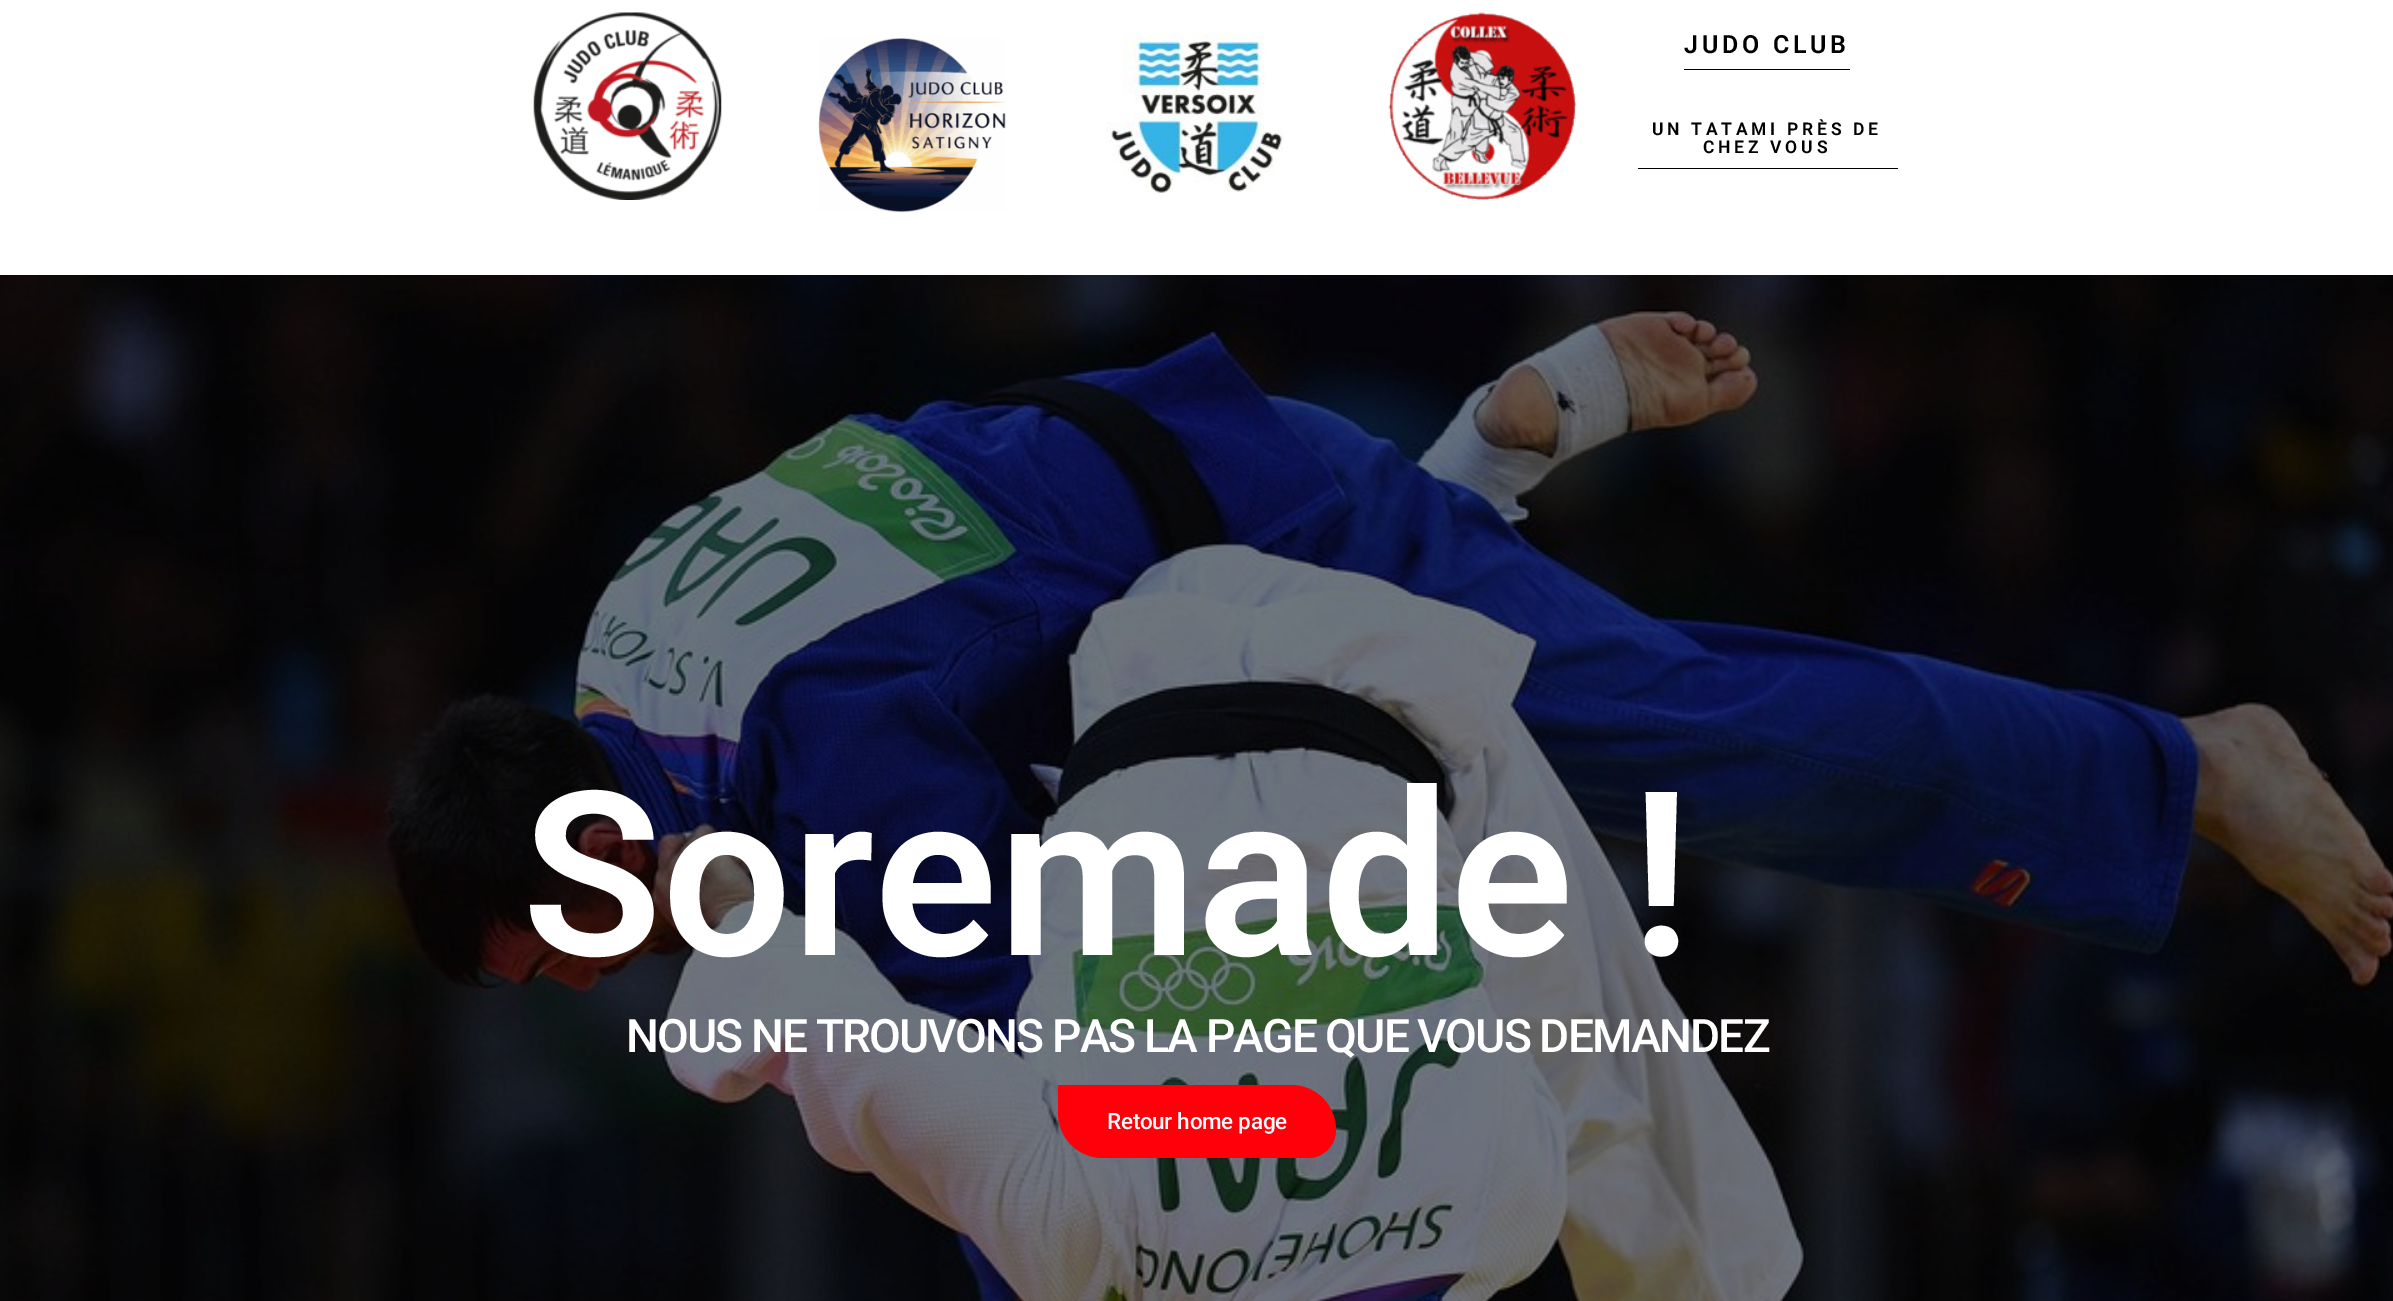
%!PS
<< /PageSize [2393 1301] >> setpagedevice
/mt/moveto load def
/li/lineto load def
/ct/curveto load def
/cp/closepath load def
/fl/fill load def
/co { dup -16 bitshift 255 div exch dup -8 bitshift 255 and 255 div exch 255 and 255 div setrgbcolor } def
/fn { [ exch dup neg 0 0 3 -1 roll 0 0 ] selectfont } def
/bx { co rectfill } def
/im { 5 dict begin { /h /w /y /x /name } { exch def } forall
  gsave x y translate w h scale
  w h 8 [w 0 0 h 0 0] name (r) file false 3 colorimage grestore end } def
0 1301 translate 1 -1 scale
4 setmiterlimit
0 0 2393 1301 16#FFFFFF bx
(media/1.raw) 533 12 189 188 im
(media/2.raw) 818 38 188 175 im
(media/3.raw) 1106 32 178 161 im
(media/4.raw) 1388 12 189 188 im
1684 69 166 1 16#000000 bx
1638 168 260 1 16#000000 bx
(media/5.raw) 0 275 2393 1026 im
16#FF000B co
1058 1085 mt 1291 1085 li 1316 1085 1336 1105 1336 1130 ct 1336 1145.5 1323.5 1158 1308 1158 ct 1103 1158 li 1078 1158 1058 1138 1058 1113 ct cp fl
/Roboto-SemiBold 25 fn
16#000000 co
1684 53 mt 3.75 0 (JUDO CLUB) ashow
/Roboto-SemiBold 17.5 fn
1652 135 mt 3.75 0 (UN TATAMI PRÈS DE) ashow
1703 153 mt 3.75 0 (CHEZ VOUS) ashow
/Roboto-SemiBold 230 fn
16#FFFFFF co
522 955 mt -.3 0 (Soremade !) ashow
/Roboto-Medium 46.25 fn
626 1052 mt -1.9 0 (NOUS NE TROUVONS PAS LA PAGE QUE VOUS DEMANDEZ) ashow
/Roboto-Medium 22.5 fn
1107 1129 mt -.3 0 (Retour home page) ashow
showpage
